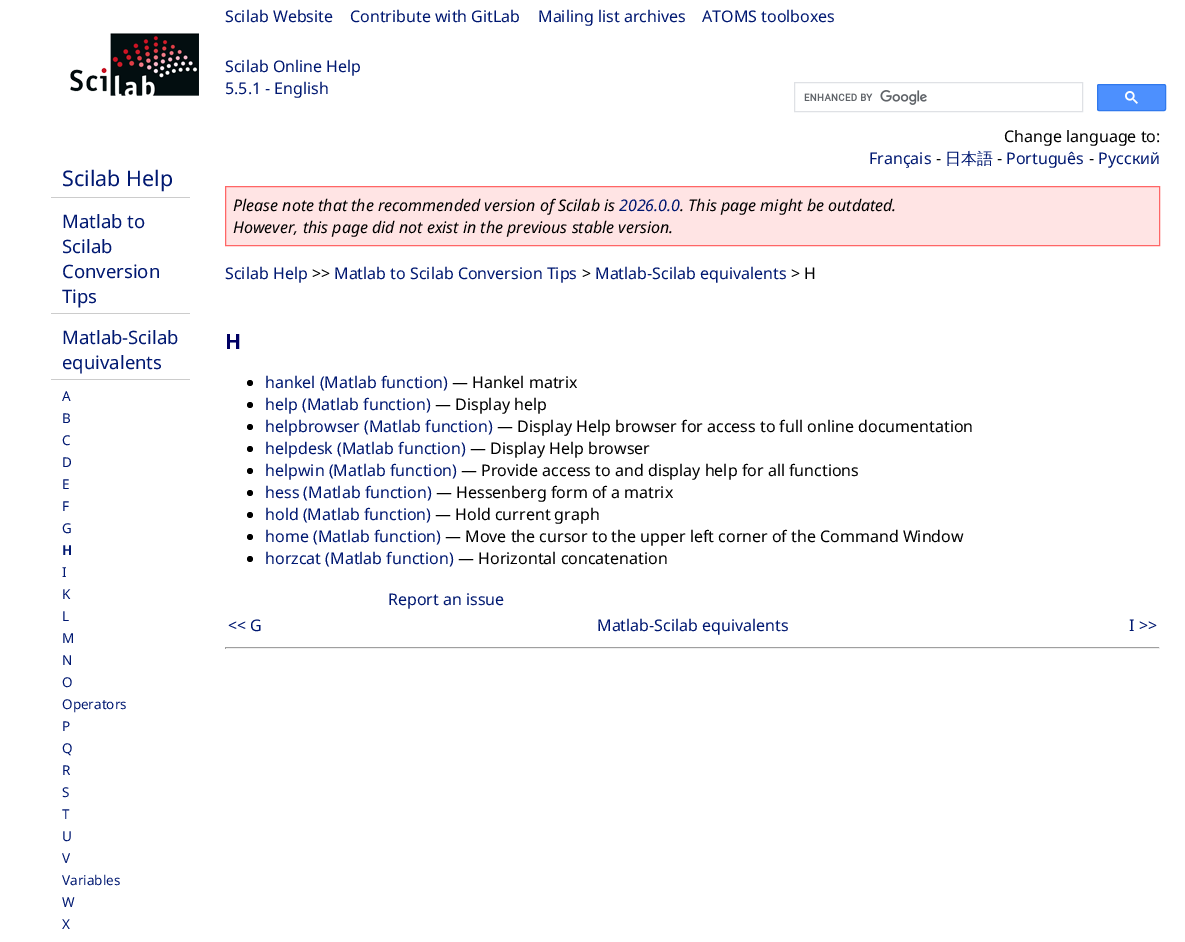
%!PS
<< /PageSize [1185 942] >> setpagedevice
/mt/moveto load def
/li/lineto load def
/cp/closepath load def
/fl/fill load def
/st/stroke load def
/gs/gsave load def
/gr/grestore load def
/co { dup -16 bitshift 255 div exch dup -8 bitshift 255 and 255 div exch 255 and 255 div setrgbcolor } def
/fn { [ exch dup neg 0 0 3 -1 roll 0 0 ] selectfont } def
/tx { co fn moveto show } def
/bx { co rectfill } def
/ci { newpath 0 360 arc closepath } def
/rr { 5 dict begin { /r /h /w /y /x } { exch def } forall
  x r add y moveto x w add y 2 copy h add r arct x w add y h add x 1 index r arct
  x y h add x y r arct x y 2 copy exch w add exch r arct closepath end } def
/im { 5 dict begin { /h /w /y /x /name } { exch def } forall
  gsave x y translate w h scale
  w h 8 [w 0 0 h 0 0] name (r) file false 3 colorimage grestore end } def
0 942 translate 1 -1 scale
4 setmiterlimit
0 0 1185 942 16#FFFFFF bx
(media/1.raw) 70 33 129 63 im
16#DFE1E5 co
794.5 82.5 288 29 rectstroke
(media/2.raw) 804 90 123 15 im
16#4D90FE co
1097.5 84.5 68 26 1.5 rr gs fl gr
16#3079ED co
st
(media/3.raw) 1125 91 13 13 im
51 197 139 1 16#CCCCCC bx
51 313 139 1 16#CCCCCC bx
51 379 139 1 16#CCCCCC bx
16#FFE4E4 co
225.5 186.5 mt 1159.5 186.5 li 1159.5 245.5 li 225.5 245.5 li cp gs fl gr
16#FF6666 co
st
16#000000 co
250 383 3 ci fl
250 405 3 ci fl
250 427 3 ci fl
250 449 3 ci fl
250 471 3 ci fl
250 493 3 ci fl
250 515 3 ci fl
250 537 3 ci fl
250 559 3 ci fl
225 647 935 1 16#9F9F9F bx
1159 647 1 2 16#EEEEEE bx
225 648 935 1 16#EEEEEE bx
225 647 1 2 16#9F9F9F bx
(Scilab Website) 225 22 /NotoSans-Regular 16 16#001871 tx
(Contribute with GitLab) 350 22 /NotoSans-Regular 16 16#001871 tx
(Mailing list archives) 538 22 /NotoSans-Regular 16 16#001871 tx
(ATOMS toolboxes) 702 22 /NotoSans-Regular 16 16#001871 tx
(Scilab Online Help) 225 72 /NotoSans-Regular 16 16#001871 tx
(5.5.1 - English) 225 94 /NotoSans-Regular 16 16#001871 tx
(Scilab Help) 62 186 /NotoSans-Regular 21.5 16#001871 tx
(Matlab to) 62 228 /NotoSans-Regular 18.5 16#001871 tx
(Scilab) 62 253 /NotoSans-Regular 18.5 16#001871 tx
(Conversion) 62 278 /NotoSans-Regular 18.5 16#001871 tx
(Tips) 62 303 /NotoSans-Regular 18.5 16#001871 tx
(Matlab-Scilab) 62 344 /NotoSans-Regular 18.5 16#001871 tx
(equivalents) 62 369 /NotoSans-Regular 18.5 16#001871 tx
(A) 62 401 /NotoSans-Regular 13.5 16#001871 tx
(B) 62 423 /NotoSans-Regular 13.5 16#001871 tx
(C) 62 445 /NotoSans-Regular 13.5 16#001871 tx
(D) 62 467 /NotoSans-Regular 13.5 16#001871 tx
(E) 62 489 /NotoSans-Regular 13.5 16#001871 tx
(F) 62 511 /NotoSans-Regular 13.5 16#001871 tx
(G) 62 533 /NotoSans-Regular 13.5 16#001871 tx
(H) 62 555 /NotoSans-Bold 13.5 16#001871 tx
(I) 62 577 /NotoSans-Regular 13.5 16#001871 tx
(K) 62 599 /NotoSans-Regular 13.5 16#001871 tx
(L) 62 621 /NotoSans-Regular 13.5 16#001871 tx
(M) 62 643 /NotoSans-Regular 13.5 16#001871 tx
(N) 62 665 /NotoSans-Regular 13.5 16#001871 tx
(O) 62 687 /NotoSans-Regular 13.5 16#001871 tx
(Operators) 62 709 /NotoSans-Regular 13.5 16#001871 tx
(P) 62 731 /NotoSans-Regular 13.5 16#001871 tx
(Q) 62 753 /NotoSans-Regular 13.5 16#001871 tx
(R) 62 775 /NotoSans-Regular 13.5 16#001871 tx
(S) 62 797 /NotoSans-Regular 13.5 16#001871 tx
(T) 62 819 /NotoSans-Regular 13.5 16#001871 tx
(U) 62 841 /NotoSans-Regular 13.5 16#001871 tx
(V) 62 863 /NotoSans-Regular 13.5 16#001871 tx
(Variables) 62 885 /NotoSans-Regular 13.5 16#001871 tx
(W) 62 907 /NotoSans-Regular 13.5 16#001871 tx
(X) 62 929 /NotoSans-Regular 13.5 16#001871 tx
(Change language to:) 1004 142 /NotoSans-Regular 16 16#000000 tx
1015 129 54 1 16#FFFFFF bx
(Français) 869 164 /NotoSans-Regular 16 16#001871 tx
(-) 936 164 /NotoSans-Regular 16 16#000000 tx
(日本語) 945 164 /WenQuanYiZenHei-Medium 16 16#001871 tx
(-) 997 164 /NotoSans-Regular 16 16#000000 tx
(Português) 1006 164 /NotoSans-Regular 16 16#001871 tx
(-) 1089 164 /NotoSans-Regular 16 16#000000 tx
(Русский) 1098 164 /NotoSans-Regular 16 16#001871 tx
(Please note that the recommended version of Scilab is) 233 211 /NotoSans-Italic 16 16#000000 tx
(2026.0.0) 619 211 /NotoSans-Italic 16 16#001871 tx
(. This page might be outdated.) 680 211 /NotoSans-Italic 16 16#000000 tx
(However, this page did not exist in the previous stable version.) 233 233 /NotoSans-Italic 16 16#000000 tx
(Scilab Help) 225 279 /NotoSans-Regular 16 16#001871 tx
(>>) 312 279 /NotoSans-Regular 16 16#000000 tx
(Matlab to Scilab Conversion Tips) 334 279 /NotoSans-Regular 16 16#001871 tx
(>) 582 279 /NotoSans-Regular 16 16#000000 tx
(Matlab-Scilab equivalents) 595 279 /NotoSans-Regular 16 16#001871 tx
(> H) 791 279 /NotoSans-Regular 16 16#000000 tx
(H) 225 349 /NotoSans-Bold 21 16#000063 tx
(hankel \(Matlab function\)) 265 388 /NotoSans-Regular 16 16#001871 tx
(— Hankel matrix) 452 388 /NotoSans-Regular 16 16#000000 tx
(help \(Matlab function\)) 265 410 /NotoSans-Regular 16 16#001871 tx
(— Display help) 435 410 /NotoSans-Regular 16 16#000000 tx
(helpbrowser \(Matlab function\)) 265 432 /NotoSans-Regular 16 16#001871 tx
(— Display Help browser for access to full online documentation) 497 432 /NotoSans-Regular 16 16#000000 tx
(helpdesk \(Matlab function\)) 265 454 /NotoSans-Regular 16 16#001871 tx
(— Display Help browser) 470 454 /NotoSans-Regular 16 16#000000 tx
(helpwin \(Matlab function\)) 265 476 /NotoSans-Regular 16 16#001871 tx
(— Provide access to and display help for all functions) 461 476 /NotoSans-Regular 16 16#000000 tx
(hess \(Matlab function\)) 265 498 /NotoSans-Regular 16 16#001871 tx
(— Hessenberg form of a matrix) 436 498 /NotoSans-Regular 16 16#000000 tx
(hold \(Matlab function\)) 265 520 /NotoSans-Regular 16 16#001871 tx
(— Hold current graph) 435 520 /NotoSans-Regular 16 16#000000 tx
(home \(Matlab function\)) 265 542 /NotoSans-Regular 16 16#001871 tx
(— Move the cursor to the upper left corner of the Command Window) 445 542 /NotoSans-Regular 16 16#000000 tx
(horzcat \(Matlab function\)) 265 564 /NotoSans-Regular 16 16#001871 tx
(— Horizontal concatenation) 458 564 /NotoSans-Regular 16 16#000000 tx
(Report an issue) 388 605 /NotoSans-Regular 16 16#001871 tx
(<< G) 228 631 /NotoSans-Regular 16 16#001871 tx
(Matlab-Scilab equivalents) 597 631 /NotoSans-Regular 16 16#001871 tx
(I >>) 1129 631 /NotoSans-Regular 16 16#001871 tx
showpage
